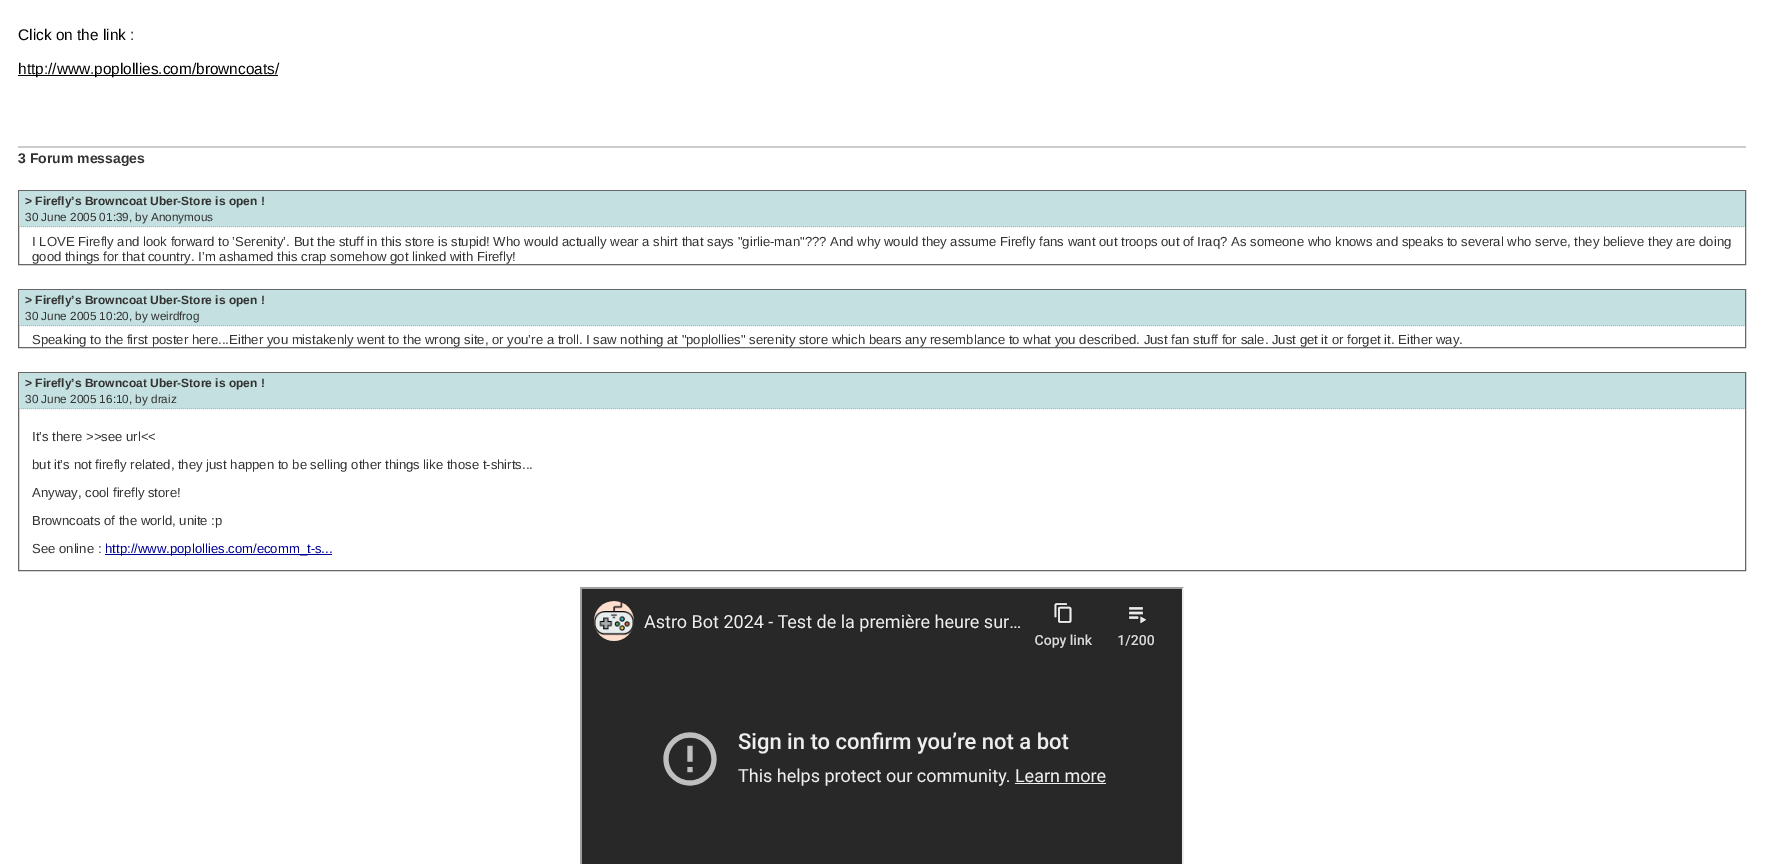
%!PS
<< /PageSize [1768 864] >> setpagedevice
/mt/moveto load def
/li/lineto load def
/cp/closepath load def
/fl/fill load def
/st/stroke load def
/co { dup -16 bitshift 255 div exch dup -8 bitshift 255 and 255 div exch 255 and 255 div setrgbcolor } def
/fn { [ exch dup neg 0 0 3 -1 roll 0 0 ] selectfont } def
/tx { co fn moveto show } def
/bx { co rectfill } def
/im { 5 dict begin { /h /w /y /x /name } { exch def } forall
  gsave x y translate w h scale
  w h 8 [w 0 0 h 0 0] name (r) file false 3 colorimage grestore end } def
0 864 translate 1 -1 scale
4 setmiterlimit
0 0 1768 864 16#FFFFFF bx
18 75 260 1 16#000000 bx
18 146 1728 2 16#CCCCCC bx
16#666666 co
18.5 190.5 1727 74 rectstroke
19 191 1726 36 16#C4E0E0 bx
16#B8B8B8 co
[1 1] 0 setdash
19 226.5 mt 1745 226.5 li st
16#666666 co
[] 0 setdash
18.5 289.5 1727 58 rectstroke
19 290 1726 36 16#C4E0E0 bx
16#B8B8B8 co
[1 1] 0 setdash
19 325.5 mt 1745 325.5 li st
16#666666 co
[] 0 setdash
18.5 372.5 1727 198 rectstroke
19 373 1726 36 16#C4E0E0 bx
16#B8B8B8 co
[1 1] 0 setdash
19 408.5 mt 1745 408.5 li st
105 554 227 1 16#000099 bx
16#9F9F9F co
580 587 mt 1184 587 li 1182 589 li 582 589 li cp fl
580 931 mt 580 587 li 582 589 li 582 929 li cp fl
(media/1.raw) 582 589 600 275 im
16#EEEEEE co
1184 587 mt 1184 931 li 1182 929 li 1182 589 li cp fl
(Click on the link :) 18 40 /LiberationSans-Regular 15.4 16#000000 tx
(http://www.poplollies.com/browncoats/) 18 74 /LiberationSans-Regular 15.4 16#000000 tx
(3 Forum messages) 18 163 /LiberationSans-Bold 14 16#333333 tx
(> Firefly’s Browncoat Uber-Store is open !) 25 205 /LiberationSans-Bold 12 16#333333 tx
(30 June 2005 01:39, by Anonymous) 25 221 /LiberationSans-Regular 11.75 16#333333 tx
(I LOVE Firefly and look forward to ’Serenity’. But the stuff in this store is stupid! Who would actually wear a shirt that says "girlie-man"??? And why would they assume Firefly fans want out troops out of Iraq? As someone who knows and speaks to several who serve, they believe they are doing) 32 246 /LiberationSans-Regular 13.12 16#333333 tx
(good things for that country. I’m ashamed this crap somehow got linked with Firefly!) 32 261 /LiberationSans-Regular 13.12 16#333333 tx
(> Firefly’s Browncoat Uber-Store is open !) 25 304 /LiberationSans-Bold 12 16#333333 tx
(30 June 2005 10:20, by weirdfrog) 25 320 /LiberationSans-Regular 11.75 16#333333 tx
(Speaking to the first poster here...Either you mistakenly went to the wrong site, or you’re a troll. I saw nothing at "poplollies" serenity store which bears any resemblance to what you described. Just fan stuff for sale. Just get it or forget it. Either way.) 32 344 /LiberationSans-Regular 13.12 16#333333 tx
(> Firefly’s Browncoat Uber-Store is open !) 25 387 /LiberationSans-Bold 12 16#333333 tx
(30 June 2005 16:10, by draiz) 25 403 /LiberationSans-Regular 11.75 16#333333 tx
(It’s there >>see url<<) 32 441 /LiberationSans-Regular 13.12 16#333333 tx
(but it’s not firefly related, they just happen to be selling other things like those t-shirts...) 32 469 /LiberationSans-Regular 13.12 16#333333 tx
(Anyway, cool firefly store!) 32 497 /LiberationSans-Regular 13.12 16#333333 tx
(Browncoats of the world, unite :p) 32 525 /LiberationSans-Regular 13.12 16#333333 tx
(See online :) 32 553 /LiberationSans-Regular 13.12 16#333333 tx
(http://www.poplollies.com/ecomm_t-s...) 105 553 /LiberationSans-Regular 13.12 16#000099 tx
showpage
